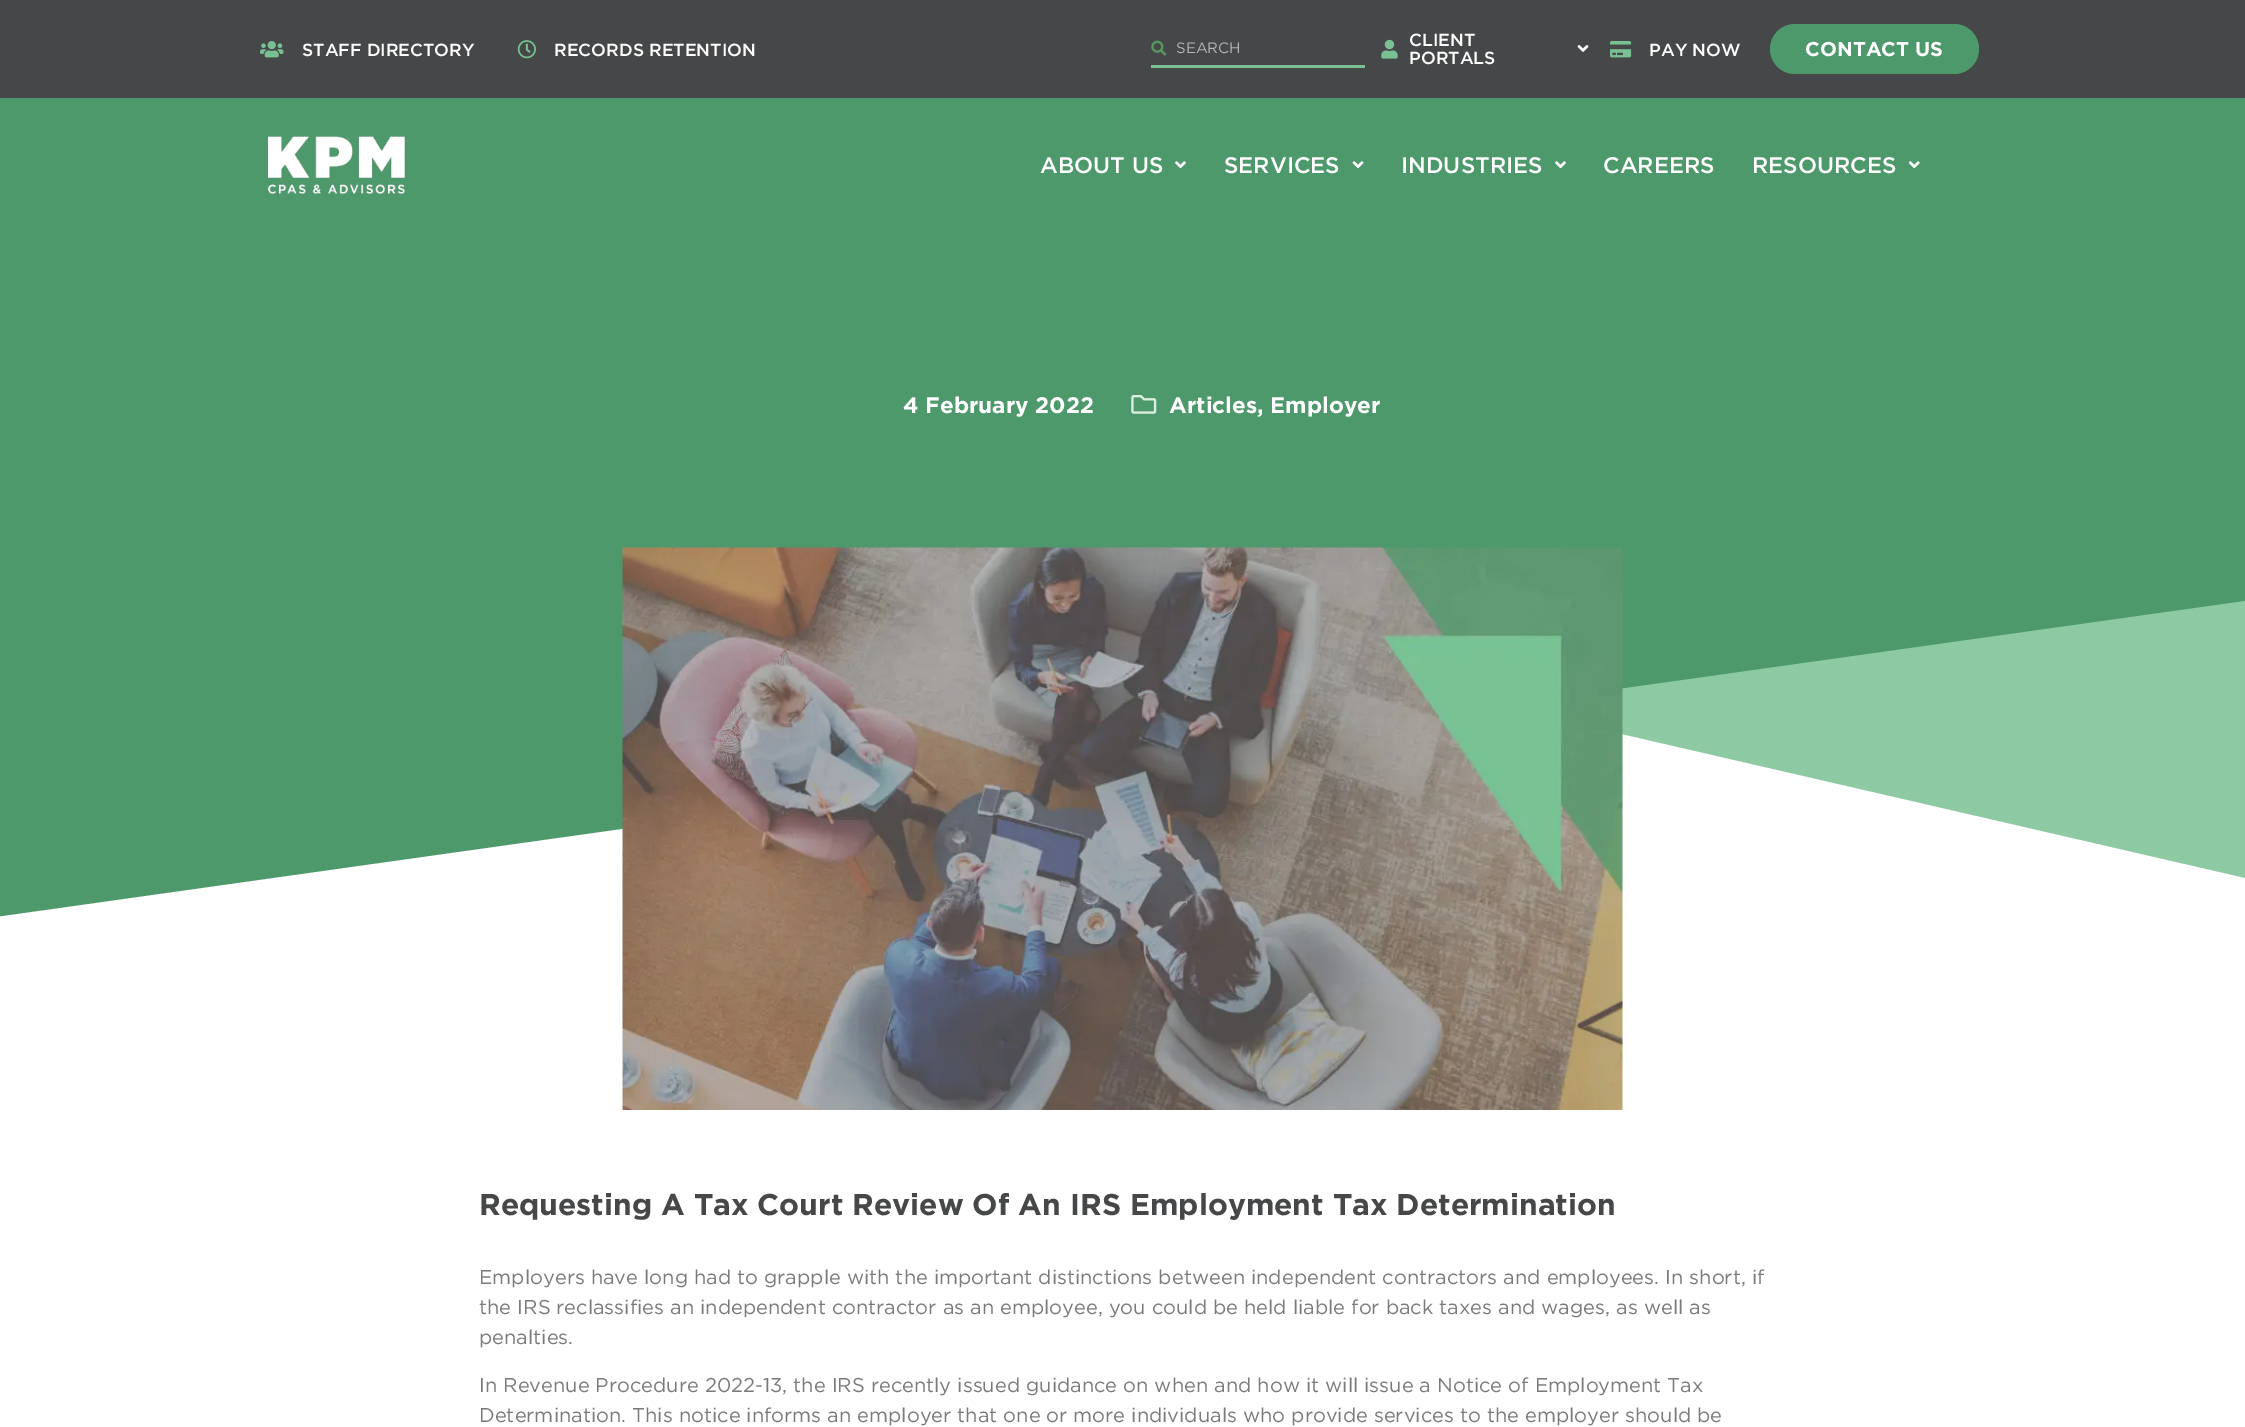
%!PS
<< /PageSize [2245 1427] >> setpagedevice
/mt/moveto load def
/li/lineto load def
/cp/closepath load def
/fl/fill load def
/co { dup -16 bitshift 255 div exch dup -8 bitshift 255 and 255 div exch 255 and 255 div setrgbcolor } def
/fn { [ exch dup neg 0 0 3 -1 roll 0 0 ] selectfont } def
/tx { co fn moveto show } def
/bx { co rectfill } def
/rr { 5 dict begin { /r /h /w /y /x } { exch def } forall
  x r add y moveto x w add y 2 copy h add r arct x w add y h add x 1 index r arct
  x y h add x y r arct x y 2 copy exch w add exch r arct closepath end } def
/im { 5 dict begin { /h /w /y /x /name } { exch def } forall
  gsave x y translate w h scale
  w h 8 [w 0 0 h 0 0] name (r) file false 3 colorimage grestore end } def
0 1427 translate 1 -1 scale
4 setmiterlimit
0 0 2245 1427 16#FFFFFF bx
16#8DCAA3 co
16 -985 mt 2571 -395 li 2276 885 li -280 295 li cp fl
16#4D996B co
-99 -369 mt 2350 -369 li 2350 586 li -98 930 li -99 924 li cp fl
0 0 2245 98 16#464748 bx
(media/1.raw) 260 41 24 17 im
(media/2.raw) 517 40 19 19 im
1151 65 214 3 16#79C193 bx
(media/3.raw) 1151 40 16 16 im
(media/4.raw) 1381 39 17 20 im
(media/5.raw) 1577 45 12 7 im
(media/6.raw) 1610 41 22 17 im
16#4D996B co
1770 24 209 50 25 rr fl
(media/7.raw) 267 136 138 58 im
(media/8.raw) 1175 161 11 8 im
(media/9.raw) 1352 161 12 8 im
(media/8.raw) 1555 161 11 8 im
(media/10.raw) 1908 161 12 8 im
(media/11.raw) 1131 395 26 19 im
(media/12.raw) 622 547 1001 563 im
(STAFF DIRECTORY) 302 56 /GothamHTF-Medium 17.5 16#FFFFFF tx
(RECORDS RETENTION) 554 56 /GothamHTF-Medium 17.5 16#FFFFFF tx
(SEARCH) 1176 53 /GothamHTF-Regular 15 16#B5B5B6 tx
(CLIENT) 1409 46 /GothamHTF-Medium 17.5 16#FFFFFF tx
(PORTALS) 1409 64 /GothamHTF-Medium 17.5 16#FFFFFF tx
(PAY NOW) 1649 56 /GothamHTF-Medium 17.5 16#FFFFFF tx
(CONTACT US) 1805 56 /GothamHTF-Bold 20 16#FFFFFF tx
(ABOUT US) 1040 173 /GothamHTF-Medium 22.5 16#FFFFFF tx
(SERVICES) 1224 173 /GothamHTF-Medium 22.5 16#FFFFFF tx
(INDUSTRIES) 1401 173 /GothamHTF-Medium 22.5 16#FFFFFF tx
(CAREERS) 1603 173 /GothamHTF-Medium 22.5 16#FFFFFF tx
(RESOURCES) 1752 173 /GothamHTF-Medium 22.5 16#FFFFFF tx
(4 February 2022) 903 413 /GothamHTF-Bold 22.5 16#FFFFFF tx
(Articles, Employer) 1169 413 /GothamHTF-Bold 22.5 16#FFFFFF tx
(Requesting A Tax Court Review Of An IRS Employment Tax Determination) 479 1215 /GothamHTF-Bold 30 16#464748 tx
(Employers have long had to grapple with the important distinctions between independent contractors and employees. In short, if) 479 1284 /GothamHTF-Regular 20 16#7A7A7A tx
(the IRS reclassifies an independent contractor as an employee, you could be held liable for back taxes and wages, as well as) 479 1314 /GothamHTF-Regular 20 16#7A7A7A tx
(penalties.) 479 1344 /GothamHTF-Regular 20 16#7A7A7A tx
(In Revenue Procedure 2022-13, the IRS recently issued guidance on when and how it will issue a Notice of Employment Tax) 479 1392 /GothamHTF-Regular 20 16#7A7A7A tx
(Determination. This notice informs an employer that one or more individuals who provide services to the employer should be) 479 1422 /GothamHTF-Regular 20 16#7A7A7A tx
showpage
